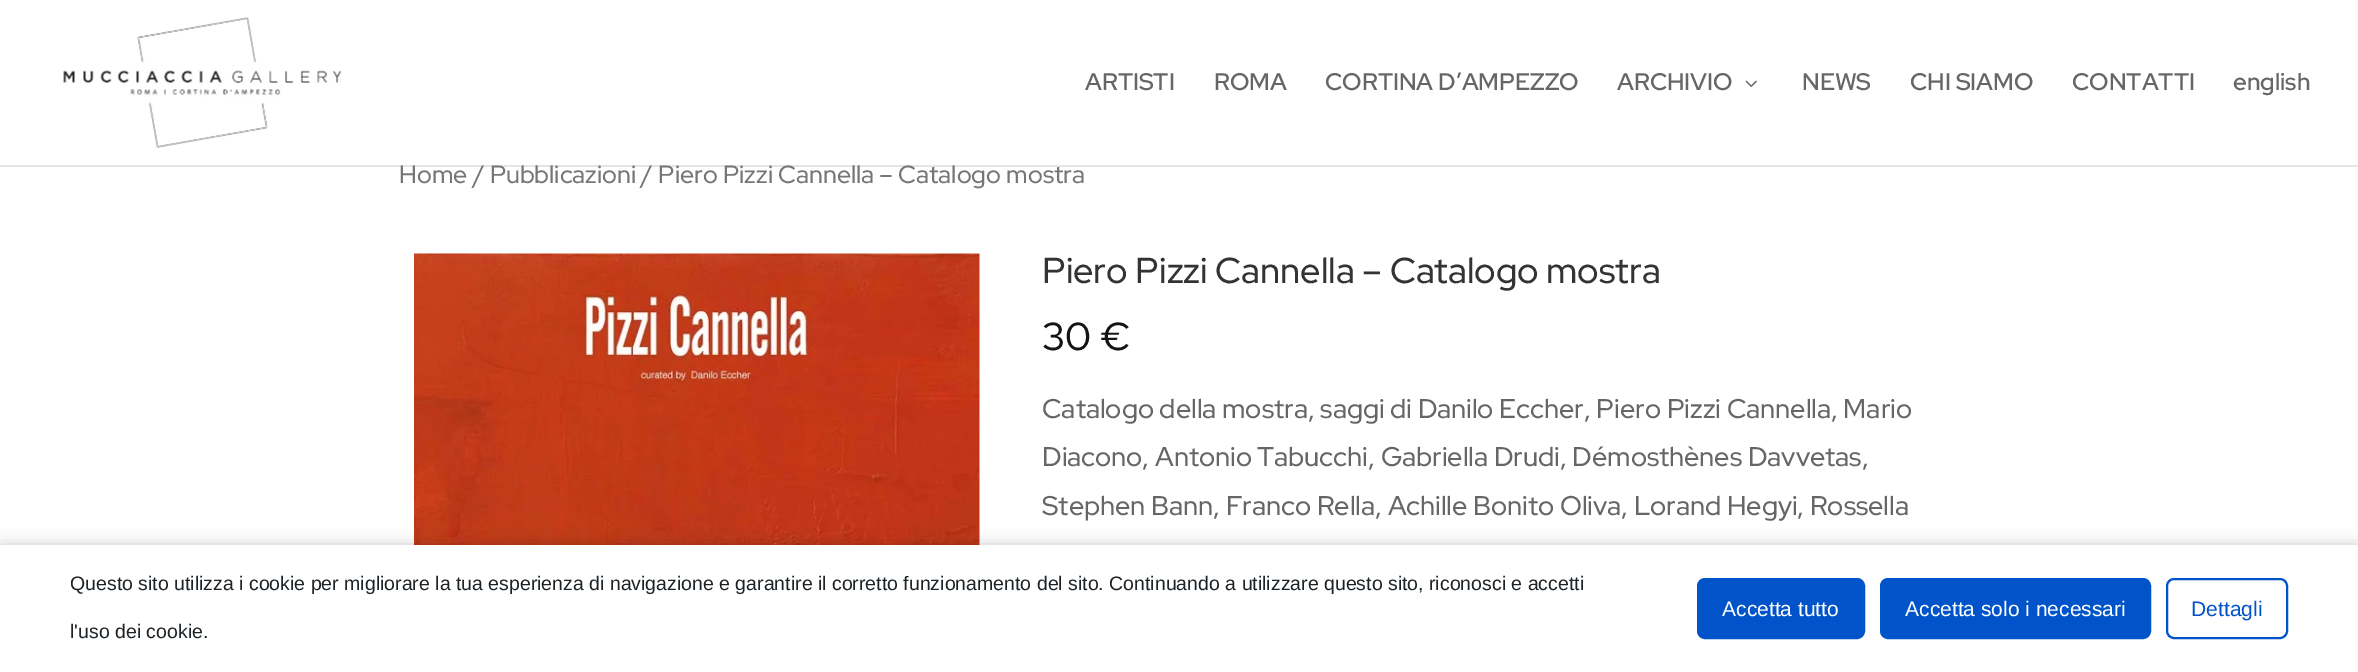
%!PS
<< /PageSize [2358 672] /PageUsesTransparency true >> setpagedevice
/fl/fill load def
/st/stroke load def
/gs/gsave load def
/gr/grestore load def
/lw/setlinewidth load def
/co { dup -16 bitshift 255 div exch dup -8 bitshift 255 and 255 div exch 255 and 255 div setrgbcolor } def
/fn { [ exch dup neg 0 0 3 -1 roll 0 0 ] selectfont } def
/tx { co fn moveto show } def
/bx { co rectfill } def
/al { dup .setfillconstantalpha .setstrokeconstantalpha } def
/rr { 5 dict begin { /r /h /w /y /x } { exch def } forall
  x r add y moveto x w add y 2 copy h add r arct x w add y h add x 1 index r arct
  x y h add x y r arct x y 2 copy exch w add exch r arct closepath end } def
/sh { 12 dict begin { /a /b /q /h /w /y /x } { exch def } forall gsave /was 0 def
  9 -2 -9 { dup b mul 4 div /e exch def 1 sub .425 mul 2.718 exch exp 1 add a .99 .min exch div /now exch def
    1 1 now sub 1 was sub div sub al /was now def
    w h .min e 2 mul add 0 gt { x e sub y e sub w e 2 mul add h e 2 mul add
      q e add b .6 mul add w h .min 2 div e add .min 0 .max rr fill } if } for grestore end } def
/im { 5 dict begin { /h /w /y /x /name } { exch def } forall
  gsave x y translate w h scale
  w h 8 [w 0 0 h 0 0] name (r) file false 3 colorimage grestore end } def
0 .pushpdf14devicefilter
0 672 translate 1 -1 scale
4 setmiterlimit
0 0 2358 672 16#FFFFFF bx
0.1 al
0 165 2358 2 16#000000 bx
1 al
(media/1.raw) 63 17 279 131 im
(media/2.raw) 1745 80 12 7 im
(media/3.raw) 414 253 566 292 im
0 545 2358 127 0 7.5 .2 sh
0 545 2358 127 16#FFFFFF bx
16#0053C8 co
1698 579 166 59 7 rr gs fl gr
2 lw
st
1881 579 269 59 7 rr gs fl gr
st
2167 579 120 59 7 rr st
(ARTISTI) 1085 90 /RedHatDisplay-SemiBold 24 16#666666 tx
(ROMA) 1214 90 /RedHatDisplay-SemiBold 24 16#666666 tx
(CORTINA D’AMPEZZO) 1325 90 /RedHatDisplay-SemiBold 24 16#666666 tx
(ARCHIVIO) 1617 90 /RedHatDisplay-SemiBold 24 16#666666 tx
(NEWS) 1802 90 /RedHatDisplay-SemiBold 24 16#666666 tx
(CHI SIAMO) 1910 90 /RedHatDisplay-SemiBold 24 16#666666 tx
(CONTATTI) 2072 90 /RedHatDisplay-SemiBold 24 16#666666 tx
(english) 2233 90 /RedHatDisplay-SemiBold 24 16#666666 tx
(Home / Pubblicazioni / Piero Pizzi Cannella – Catalogo mostra) 399 183 /RedHatDisplay-Medium 24.85 16#767676 tx
(Piero Pizzi Cannella – Catalogo mostra) 1042 283 /RedHatDisplay-Medium 36 16#333333 tx
(30 €) 1042 350 /RedHatDisplay-Medium 39 16#141414 tx
(Catalogo della mostra, saggi di Danilo Eccher, Piero Pizzi Cannella, Mario) 1042 418 /RedHatDisplay-Medium 27 16#666666 tx
(Diacono, Antonio Tabucchi, Gabriella Drudi, Démosthènes Davvetas,) 1042 466 /RedHatDisplay-Medium 27 16#666666 tx
(Stephen Bann, Franco Rella, Achille Bonito Oliva, Lorand Hegyi, Rossella) 1042 515 /RedHatDisplay-Medium 27 16#666666 tx
(Questo sito utilizza i cookie per migliorare la tua esperienza di navigazione e garantire il corretto funzionamento del sito. Continuando a utilizzare questo sito, riconosci e accetti) 70 590 /LiberationSans-Regular 19.5 16#1D2327 tx
(l'uso dei cookie.) 70 638 /LiberationSans-Regular 19.5 16#1D2327 tx
(Accetta tutto) 1722 616 /LiberationSans-Regular 21 16#FFFFFF tx
(Accetta solo i necessari) 1905 616 /LiberationSans-Regular 21 16#FFFFFF tx
(Dettagli) 2191 616 /LiberationSans-Regular 21 16#0053C8 tx
.poppdf14devicefilter showpage
